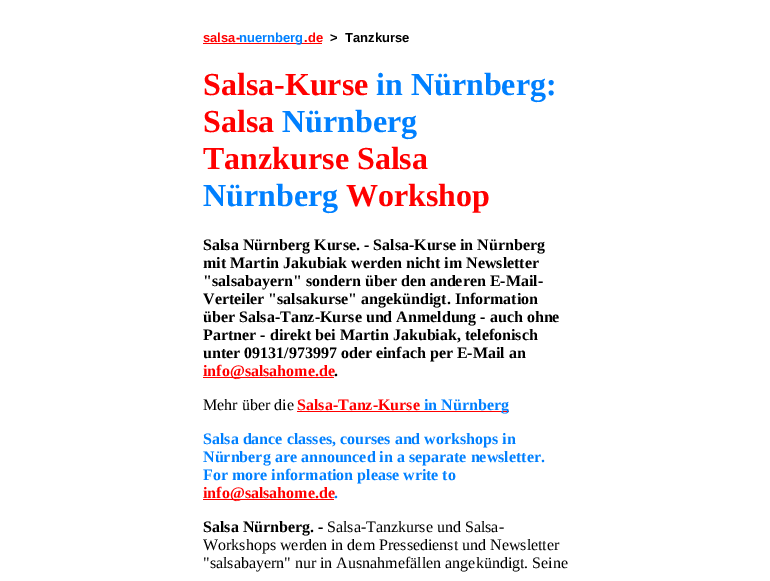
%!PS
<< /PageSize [770 581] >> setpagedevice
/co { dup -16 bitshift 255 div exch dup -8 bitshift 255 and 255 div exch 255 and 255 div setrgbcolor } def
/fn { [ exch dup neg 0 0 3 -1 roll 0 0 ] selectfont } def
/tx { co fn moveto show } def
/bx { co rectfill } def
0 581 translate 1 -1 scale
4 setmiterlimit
0 0 770 581 16#FFFFFF bx
203 43 119 1 16#FF0000 bx
203 377 131 1 16#FF0000 bx
297 411 212 1 16#FF0000 bx
203 499 131 1 16#FF0000 bx
(salsa-) 203 42 /LiberationSans-Bold 13 16#FF0000 tx
(nuernberg) 239 42 /LiberationSans-Bold 13 16#0080FF tx
(.de) 304 42 /LiberationSans-Bold 13 16#FF0000 tx
(>) 330 42 /LiberationSans-Bold 13 16#000000 tx
(Tanzkurse) 345 42 /LiberationSans-Bold 13 16#000000 tx
(Salsa-Kurse) 203 95 /LiberationSerif-Bold 32 16#FF0000 tx
(in Nürnberg:) 376 95 /LiberationSerif-Bold 32 16#0080FF tx
(Salsa) 203 132 /LiberationSerif-Bold 32 16#FF0000 tx
(Nürnberg) 282 132 /LiberationSerif-Bold 32 16#0080FF tx
(Tanzkurse Salsa) 203 169 /LiberationSerif-Bold 32 16#FF0000 tx
(Nürnberg) 203 206 /LiberationSerif-Bold 32 16#0080FF tx
(Workshop) 346 206 /LiberationSerif-Bold 32 16#FF0000 tx
(Salsa Nürnberg Kurse. - Salsa-Kurse in Nürnberg) 203 250 /LiberationSerif-Bold 16 16#000000 tx
(mit Martin Jakubiak werden nicht im Newsletter) 203 268 /LiberationSerif-Bold 16 16#000000 tx
("salsabayern" sondern über den anderen E-Mail-) 203 286 /LiberationSerif-Bold 16 16#000000 tx
(Verteiler "salsakurse" angekündigt. Information) 203 304 /LiberationSerif-Bold 16 16#000000 tx
(über Salsa-Tanz-Kurse und Anmeldung - auch ohne) 203 322 /LiberationSerif-Bold 16 16#000000 tx
(Partner - direkt bei Martin Jakubiak, telefonisch) 203 340 /LiberationSerif-Bold 16 16#000000 tx
(unter 09131/973997 oder einfach per E-Mail an) 203 358 /LiberationSerif-Bold 16 16#000000 tx
(info@salsahome.de) 203 376 /LiberationSerif-Bold 16 16#FF0000 tx
(.) 334 376 /LiberationSerif-Bold 16 16#000000 tx
(Mehr über die) 203 410 /LiberationSerif-Regular 16 16#000000 tx
(Salsa-Tanz-Kurse) 297 410 /LiberationSerif-Bold 16 16#FF0000 tx
(in Nürnberg) 424 410 /LiberationSerif-Bold 16 16#0080FF tx
(Salsa dance classes, courses and workshops in) 203 444 /LiberationSerif-Bold 16 16#0080FF tx
(Nürnberg are announced in a separate newsletter.) 203 462 /LiberationSerif-Bold 16 16#0080FF tx
(For more information please write to) 203 480 /LiberationSerif-Bold 16 16#0080FF tx
(info@salsahome.de) 203 498 /LiberationSerif-Bold 16 16#FF0000 tx
(.) 334 498 /LiberationSerif-Bold 16 16#0080FF tx
(Salsa Nürnberg. -) 203 532 /LiberationSerif-Bold 16 16#000000 tx
(Salsa-Tanzkurse und Salsa-) 327 532 /LiberationSerif-Regular 16 16#000000 tx
(Workshops werden in dem Pressedienst und Newsletter) 203 550 /LiberationSerif-Regular 16 16#000000 tx
("salsabayern" nur in Ausnahmefällen angekündigt. Seine) 203 568 /LiberationSerif-Regular 16 16#000000 tx
showpage
